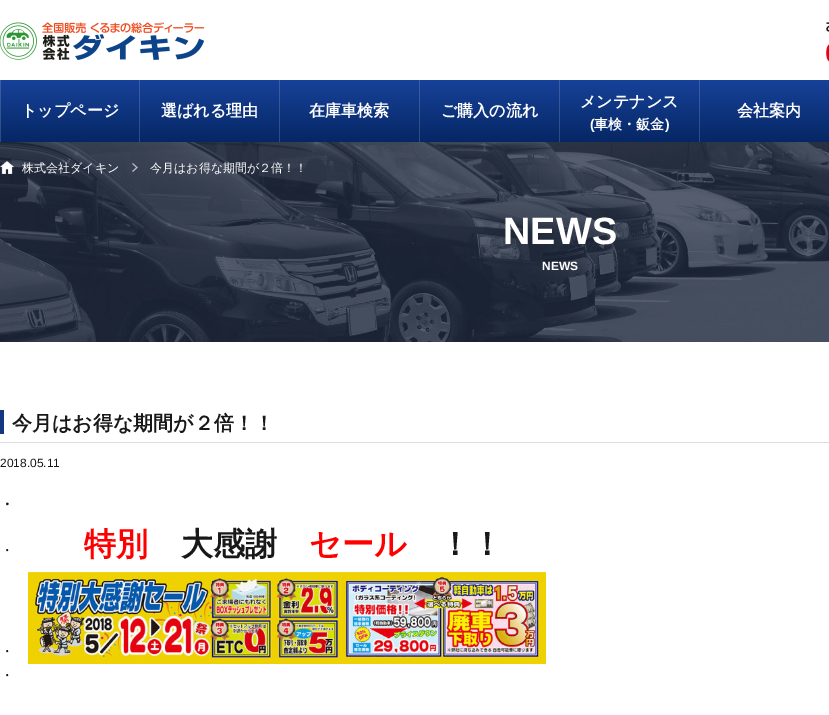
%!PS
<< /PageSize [829 715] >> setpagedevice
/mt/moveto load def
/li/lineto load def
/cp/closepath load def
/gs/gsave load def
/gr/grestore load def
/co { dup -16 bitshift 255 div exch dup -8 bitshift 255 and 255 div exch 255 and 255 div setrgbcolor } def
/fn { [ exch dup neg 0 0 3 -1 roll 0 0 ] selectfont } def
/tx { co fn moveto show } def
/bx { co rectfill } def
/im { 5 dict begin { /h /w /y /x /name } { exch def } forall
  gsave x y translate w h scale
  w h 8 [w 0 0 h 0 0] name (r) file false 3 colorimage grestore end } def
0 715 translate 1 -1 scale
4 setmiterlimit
0 0 829 715 16#FFFFFF bx
(media/1.raw) 0 22 204 38 im
(media/2.raw) 826 22 3 40 im
gs 1 80 mt 829 80 li 829 142 li 1 142 li cp clip newpath
<< /ShadingType 2 /ColorSpace /DeviceRGB /Coords [415 80 415 142] /Extend [true true] /Function << /FunctionType 2 /Domain [0 1] /C0 [.09 .259 .6] /C1 [.024 .153 .396] /N 1 >> >> shfill gr
gs 699 80 mt 700 80 li 700 142 li 699 142 li cp clip newpath
<< /ShadingType 2 /ColorSpace /DeviceRGB /Coords [415 80 415 142] /Extend [true true] /Function << /FunctionType 2 /Domain [0 1] /C0 [.235 .376 .663] /C1 [.18 .29 .494] /N 1 >> >> shfill gr
gs 559 80 mt 560 80 li 560 142 li 559 142 li cp clip newpath
<< /ShadingType 2 /ColorSpace /DeviceRGB /Coords [415 80 415 142] /Extend [true true] /Function << /FunctionType 2 /Domain [0 1] /C0 [.235 .376 .663] /C1 [.18 .29 .494] /N 1 >> >> shfill gr
gs 419 80 mt 420 80 li 420 142 li 419 142 li cp clip newpath
<< /ShadingType 2 /ColorSpace /DeviceRGB /Coords [415 80 415 142] /Extend [true true] /Function << /FunctionType 2 /Domain [0 1] /C0 [.235 .376 .663] /C1 [.18 .29 .494] /N 1 >> >> shfill gr
gs 279 80 mt 280 80 li 280 142 li 279 142 li cp clip newpath
<< /ShadingType 2 /ColorSpace /DeviceRGB /Coords [415 80 415 142] /Extend [true true] /Function << /FunctionType 2 /Domain [0 1] /C0 [.235 .376 .663] /C1 [.18 .29 .494] /N 1 >> >> shfill gr
gs 0 80 mt 1 80 li 1 142 li 0 142 li cp clip newpath
<< /ShadingType 2 /ColorSpace /DeviceRGB /Coords [415 80 415 142] /Extend [true true] /Function << /FunctionType 2 /Domain [0 1] /C0 [.235 .376 .663] /C1 [.18 .29 .494] /N 1 >> >> shfill gr
gs 139 80 mt 140 80 li 140 142 li 139 142 li cp clip newpath
<< /ShadingType 2 /ColorSpace /DeviceRGB /Coords [415 80 415 142] /Extend [true true] /Function << /FunctionType 2 /Domain [0 1] /C0 [.235 .376 .663] /C1 [.18 .29 .494] /N 1 >> >> shfill gr
(media/3.raw) 0 142 829 200 im
(media/4.raw) 0 161 14 13 im
(media/5.raw) 132 163 6 9 im
0 442 829 1 16#DDDDDD bx
0 410 4 24 16#14387F bx
(media/6.raw) 28 572 518 92 im
(トップページ) 21 116 /WenQuanYiZenHei-Bold 16 16#FFFFFF tx
(選ばれる理由) 161 116 /WenQuanYiZenHei-Bold 16 16#FFFFFF tx
(在庫車検索) 309 116 /WenQuanYiZenHei-Bold 16 16#FFFFFF tx
(ご購入の流れ) 441 116 /WenQuanYiZenHei-Bold 16 16#FFFFFF tx
(メンテナンス) 580 107 /WenQuanYiZenHei-Bold 16 16#FFFFFF tx
(\() 590 129 /LiberationSans-Bold 14 16#FFFFFF tx
(車検・鈑金) 594 129 /WenQuanYiZenHei-Bold 14 16#FFFFFF tx
(\)) 665 129 /LiberationSans-Bold 14 16#FFFFFF tx
(会社案内) 737 116 /WenQuanYiZenHei-Bold 16 16#FFFFFF tx
(株式会社ダイキン) 22 172 /WenQuanYiZenHei-Medium 12 16#FFFFFF tx
(今月はお得な期間が２倍！！) 150 172 /WenQuanYiZenHei-Medium 12 16#FFFFFF tx
(NEWS) 503 244 /LiberationSans-Bold 38 16#FFFFFF tx
(NEWS) 542 270 /LiberationSans-Bold 12 16#FFFFFF tx
(今月はお得な期間が２倍！！) 12 430 /WenQuanYiZenHei-Bold 20 16#181818 tx
(2018.05.11) 0 467 /LiberationSans-Regular 12 16#181818 tx
(・) 0 509 /WenQuanYiZenHei-Bold 14 16#181818 tx
(・) 0 555 /WenQuanYiZenHei-Medium 14 16#181818 tx
(特別) 84 555 /WenQuanYiZenHei-Bold 32 16#FF0000 tx
(大感謝) 181 555 /WenQuanYiZenHei-Bold 32 16#181818 tx
(セール) 309 555 /WenQuanYiZenHei-Bold 32 16#FF0000 tx
(！！) 439 555 /WenQuanYiZenHei-Bold 32 16#181818 tx
(・) 0 656 /WenQuanYiZenHei-Medium 14 16#181818 tx
(・) 0 680 /WenQuanYiZenHei-Medium 14 16#181818 tx
showpage
